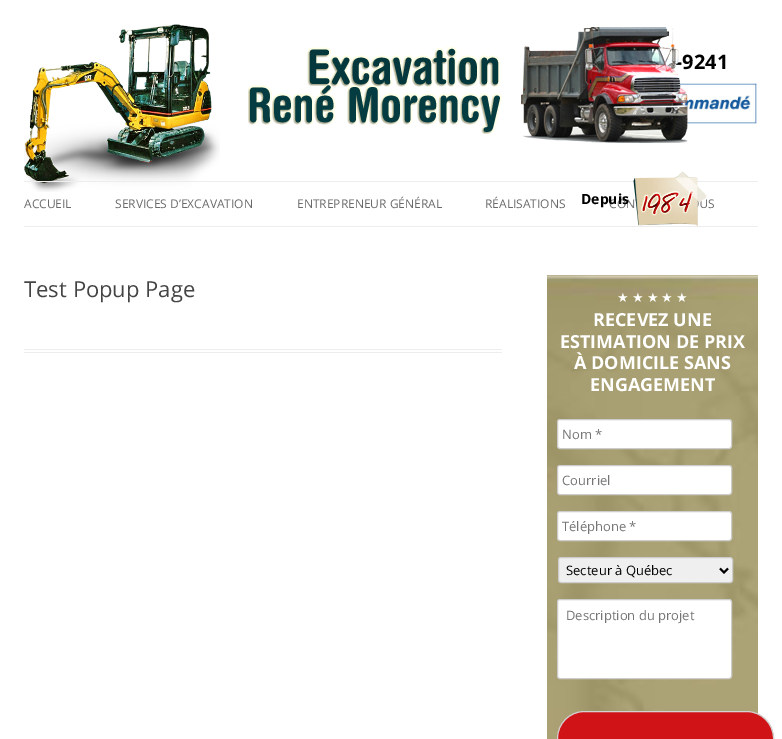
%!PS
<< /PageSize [782 739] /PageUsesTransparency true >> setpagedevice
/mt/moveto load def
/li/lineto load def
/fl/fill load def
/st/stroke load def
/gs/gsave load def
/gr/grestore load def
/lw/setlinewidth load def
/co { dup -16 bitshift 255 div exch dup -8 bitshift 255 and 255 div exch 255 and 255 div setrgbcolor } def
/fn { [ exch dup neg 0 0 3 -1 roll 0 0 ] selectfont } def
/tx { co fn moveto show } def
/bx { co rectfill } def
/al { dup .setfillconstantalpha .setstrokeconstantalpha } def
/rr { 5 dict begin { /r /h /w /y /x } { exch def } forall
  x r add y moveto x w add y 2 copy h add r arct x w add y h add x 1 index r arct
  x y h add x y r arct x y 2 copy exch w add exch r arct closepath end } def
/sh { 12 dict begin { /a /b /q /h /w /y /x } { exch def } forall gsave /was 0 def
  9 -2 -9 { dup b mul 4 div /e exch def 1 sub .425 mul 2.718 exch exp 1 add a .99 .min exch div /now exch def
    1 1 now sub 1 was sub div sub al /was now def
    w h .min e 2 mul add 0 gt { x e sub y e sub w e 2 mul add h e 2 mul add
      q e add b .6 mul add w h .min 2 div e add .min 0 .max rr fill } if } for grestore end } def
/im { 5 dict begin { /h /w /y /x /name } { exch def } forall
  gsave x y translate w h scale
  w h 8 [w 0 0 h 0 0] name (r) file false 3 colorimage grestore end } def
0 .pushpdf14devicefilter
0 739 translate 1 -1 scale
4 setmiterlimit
0 0 782 739 16#FFFFFF bx
(media/1.raw) 24 24 196 168 im
(media/3.raw) 679 82 78 42 im
24 181 734 1 16#EDEDED bx
24 226 734 1 16#EDEDED bx
24 349 478 1 16#EDEDED bx
24 352 478 1 16#EDEDED bx
(media/5.raw) 547 275 211 464 im
16#FFFFFF co
557.5 419.5 174 29 2.5 rr gs fl gr
16#CCCCCC co
st
16#FFFFFF co
557.5 465.5 174 29 2.5 rr gs fl gr
16#CCCCCC co
st
16#FFFFFF co
557.5 511.5 174 29 2.5 rr gs fl gr
16#CCCCCC co
st
16#EFEFEF co
558.5 557.5 174 25 2.5 rr gs fl gr
16#CCCCCC co
st
16#000000 co
2 lw
720 568.5 mt 724 572.5 li 728 568.5 li st
16#FFFFFF co
557.5 599.5 174 79 2.5 rr gs fl gr
16#CCCCCC co
1 lw
st
16#404040 co
557 712 217 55 27.5 1 .1 sh
16#D01316 co
557.5 711.5 216 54 27 rr gs fl gr
16#D2D2D2 co
st
(-9241) 676 69 /OpenSans-Bold 20 16#000000 tx
(media/2.raw) 248 27 440 116 im
(ACCUEIL) 24 208 /OpenSans-Regular 12 16#6A6A6A tx
(SERVICES D’EXCAVATION) 115 208 /OpenSans-Regular 12 16#6A6A6A tx
(ENTREPRENEUR GÉNÉRAL) 297 208 /OpenSans-Regular 12 16#6A6A6A tx
(RÉALISATIONS) 485 208 /OpenSans-Regular 12 16#6A6A6A tx
(CON) 609 208 /OpenSans-Regular 12 16#6A6A6A tx
(Depuis) 581 204 /OpenSans-Bold 14 16#000000 tx
(US) 699 208 /OpenSans-Regular 12 16#6A6A6A tx
(media/4.raw) 633 171 74 55 im
(Test Popup Page) 24 297 /OpenSans-Regular 22 16#444444 tx
/DejaVuSans-Regular 13 fn
16#FFFFFF co
617 302 mt -1 0 32 (★ ★ ★ ★ ★) widthshow
(RECEVEZ UNE) 593 326 /OpenSans-Bold 18 16#FFFFFF tx
(ESTIMATION DE PRIX) 560 348 /OpenSans-Bold 18 16#FFFFFF tx
(À DOMICILE SANS) 574 369 /OpenSans-Bold 18 16#FFFFFF tx
(ENGAGEMENT) 590 391 /OpenSans-Bold 18 16#FFFFFF tx
(Nom *) 562 439 /OpenSans-Regular 13 16#757575 tx
(Courriel) 562 485 /OpenSans-Regular 13 16#757575 tx
(Téléphone *) 562 531 /OpenSans-Regular 13 16#757575 tx
(Secteur à Québec) 566 575 /OpenSans-Regular 13 16#000000 tx
(Description du projet) 566 620 /OpenSans-Regular 13 16#757575 tx
.poppdf14devicefilter showpage
